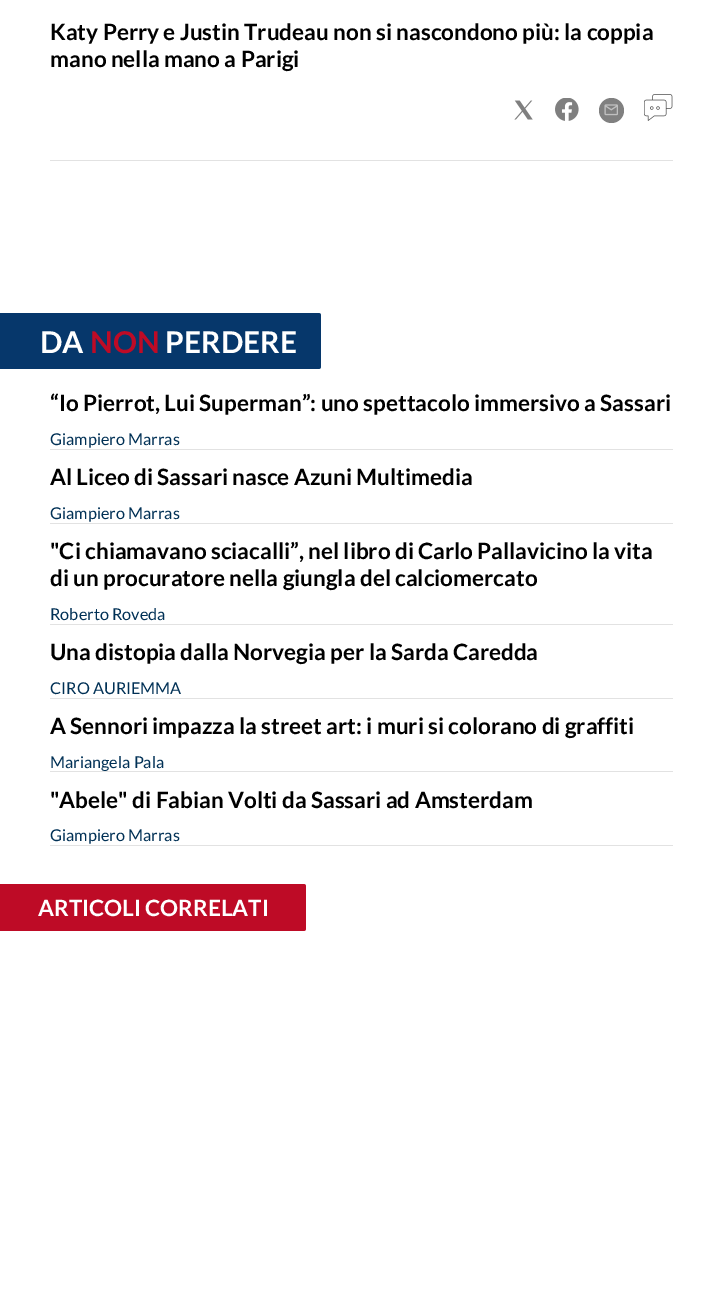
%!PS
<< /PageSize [722 1302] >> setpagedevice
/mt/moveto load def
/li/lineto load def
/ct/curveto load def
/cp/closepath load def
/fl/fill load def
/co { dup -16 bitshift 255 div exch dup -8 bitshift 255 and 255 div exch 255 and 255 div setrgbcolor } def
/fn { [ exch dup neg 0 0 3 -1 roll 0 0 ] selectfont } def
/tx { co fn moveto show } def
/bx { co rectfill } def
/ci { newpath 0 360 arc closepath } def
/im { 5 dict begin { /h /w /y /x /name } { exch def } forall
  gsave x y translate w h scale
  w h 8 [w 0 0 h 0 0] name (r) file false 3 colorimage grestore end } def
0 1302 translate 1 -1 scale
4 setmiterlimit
0 0 722 1302 16#FFFFFF bx
50 160 623 1 16#E2E2E2 bx
(media/1.raw) 514 100 19 20 im
(media/2.raw) 555 98 24 23 im
16#808080 co
611.5 110.5 12.5 ci fl
(media/3.raw) 604 104 14 12 im
(media/4.raw) 644 94 29 27 im
16#06376B co
25 313 mt 318.5 313 li 320 313 321 314 321 315.5 ct 321 366.5 li 321 368 320 369 318.5 369 ct 25 369 li cp fl
0 313 25 56 16#06376B bx
50 449 623 1 16#E2E2E2 bx
50 523 623 1 16#E2E2E2 bx
50 624 623 1 16#E2E2E2 bx
50 698 623 1 16#E2E2E2 bx
50 771 623 1 16#E2E2E2 bx
50 845 623 1 16#E2E2E2 bx
16#BE0B26 co
0 884 mt 303.5 884 li 305 884 306 885 306 886.5 ct 306 928.5 li 306 930 305 931 303.5 931 ct 0 931 li cp fl
(Katy Perry e Justin Trudeau non si nascondono più: la coppia) 50 40 /Lato-Bold 22.5 16#000000 tx
(mano nella mano a Parigi) 50 67 /Lato-Bold 22.5 16#000000 tx
(DA) 40 353 /Lato-Bold 30 16#FFFFFF tx
(NON) 90 353 /Lato-Bold 30 16#BE0B26 tx
(PERDERE) 165 353 /Lato-Bold 30 16#FFFFFF tx
(“Io Pierrot, Lui Superman”: uno spettacolo immersivo a Sassari) 50 411 /Lato-Bold 22.5 16#000000 tx
(Giampiero Marras) 50 445 /Lato-Regular 16.25 16#003055 tx
(Al Liceo di Sassari nasce Azuni Multimedia) 50 485 /Lato-Bold 22.5 16#000000 tx
(Giampiero Marras) 50 519 /Lato-Regular 16.25 16#003055 tx
("Ci chiamavano sciacalli”, nel libro di Carlo Pallavicino la vita) 50 559 /Lato-Bold 22.5 16#000000 tx
(di un procuratore nella giungla del calciomercato) 50 586 /Lato-Bold 22.5 16#000000 tx
(Roberto Roveda) 50 620 /Lato-Regular 16.25 16#003055 tx
(Una distopia dalla Norvegia per la Sarda Caredda) 50 660 /Lato-Bold 22.5 16#000000 tx
(CIRO AURIEMMA) 50 694 /Lato-Regular 16.25 16#003055 tx
(A Sennori impazza la street art: i muri si colorano di graffiti) 50 734 /Lato-Bold 22.5 16#000000 tx
(Mariangela Pala) 50 768 /Lato-Regular 16.25 16#003055 tx
("Abele" di Fabian Volti da Sassari ad Amsterdam) 50 808 /Lato-Bold 22.5 16#000000 tx
(Giampiero Marras) 50 841 /Lato-Regular 16.25 16#003055 tx
(ARTICOLI CORRELATI) 38 916 /Lato-Bold 22.5 16#FFFFFF tx
showpage
